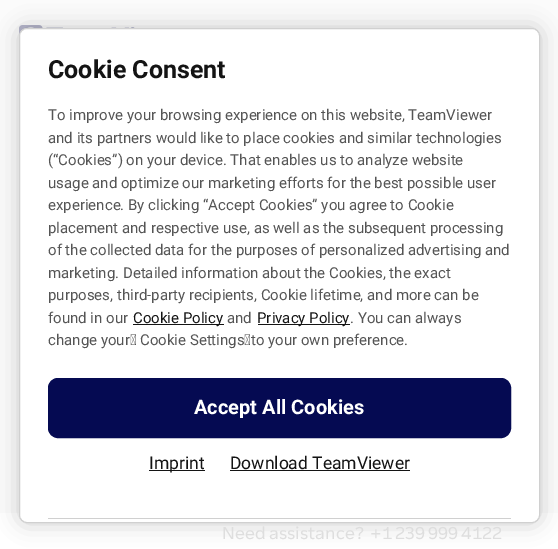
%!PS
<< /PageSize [558 549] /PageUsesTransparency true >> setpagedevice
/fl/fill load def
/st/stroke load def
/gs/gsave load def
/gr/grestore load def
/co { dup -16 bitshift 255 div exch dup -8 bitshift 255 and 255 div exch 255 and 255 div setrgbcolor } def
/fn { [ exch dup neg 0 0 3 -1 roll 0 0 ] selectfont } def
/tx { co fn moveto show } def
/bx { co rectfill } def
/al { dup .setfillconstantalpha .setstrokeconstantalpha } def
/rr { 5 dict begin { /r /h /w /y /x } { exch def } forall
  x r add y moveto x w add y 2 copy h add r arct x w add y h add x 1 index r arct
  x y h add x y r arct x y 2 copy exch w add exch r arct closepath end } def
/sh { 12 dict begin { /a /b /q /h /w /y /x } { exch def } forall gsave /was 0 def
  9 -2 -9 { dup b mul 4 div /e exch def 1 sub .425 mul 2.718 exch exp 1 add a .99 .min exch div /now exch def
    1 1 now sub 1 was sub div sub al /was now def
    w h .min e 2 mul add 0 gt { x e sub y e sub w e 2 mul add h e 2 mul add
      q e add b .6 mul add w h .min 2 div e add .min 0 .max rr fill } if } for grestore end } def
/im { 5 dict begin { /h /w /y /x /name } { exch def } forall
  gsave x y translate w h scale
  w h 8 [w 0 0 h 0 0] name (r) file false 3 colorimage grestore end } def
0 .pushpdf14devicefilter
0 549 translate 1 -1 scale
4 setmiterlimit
0 0 558 549 16#FBFBFB bx
(media/1.raw) 19 25 116 11 im
0 513 558 36 16#FFFFFF bx
16#000000 co
19 28 521 495 8 11 .2 sh
16#FFFFFF co
19.5 28.5 520 494 7.5 rr gs fl gr
16#D0D0D0 co
st
133 324 91 1 16#141414 bx
258 324 92 1 16#141414 bx
149 470 56 1 16#141414 bx
230 470 180 1 16#141414 bx
48 518 463 1 16#D0D0D0 bx
16#050A52 co
48.5 378.5 462 59 9.5 rr gs fl gr
st
(Cookie Consent) 48 78 /Roboto-Bold 25 16#141414 tx
(To improve your browsing experience on this website, TeamViewer) 48 120 /Roboto-Regular 15 16#555555 tx
(and its partners would like to place cookies and similar technologies) 48 143 /Roboto-Regular 15 16#555555 tx
(\(“Cookies”\) on your device. That enables us to analyze website) 48 165 /Roboto-Regular 15 16#555555 tx
(usage and optimize our marketing efforts for the best possible user) 48 188 /Roboto-Regular 15 16#555555 tx
(experience. By clicking “Accept Cookies” you agree to Cookie) 48 210 /Roboto-Regular 15 16#555555 tx
(placement and respective use, as well as the subsequent processing) 48 233 /Roboto-Regular 15 16#555555 tx
(of the collected data for the purposes of personalized advertising and) 48 255 /Roboto-Regular 15 16#555555 tx
(marketing. Detailed information about the Cookies, the exact) 48 278 /Roboto-Regular 15 16#555555 tx
(purposes, third-party recipients, Cookie lifetime, and more can be) 48 300 /Roboto-Regular 15 16#555555 tx
(found in our) 48 323 /Roboto-Regular 15 16#555555 tx
(Cookie Policy) 133 323 /Roboto-Regular 15 16#141414 tx
(and) 227 323 /Roboto-Regular 15 16#555555 tx
(Privacy Policy) 257 323 /Roboto-Regular 15 16#141414 tx
(. You can always) 350 323 /Roboto-Regular 15 16#555555 tx
(change your  Cookie Settings to your own preference.) 48 345 /Roboto-Regular 15 16#555555 tx
(Imprint) 149 469 /Roboto-Regular 17.5 16#141414 tx
(Download TeamViewer) 230 469 /Roboto-Regular 17.5 16#141414 tx
(Accept All Cookies) 194 414 /Roboto-Bold 20 16#FFFFFF tx
(Need assistance?) 222 539 /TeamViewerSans-Regular 15 16#DEDEDE tx
(+1 239 999 4122) 370 539 /TeamViewerSans-Regular 15 16#DEDEDE tx
.poppdf14devicefilter showpage
